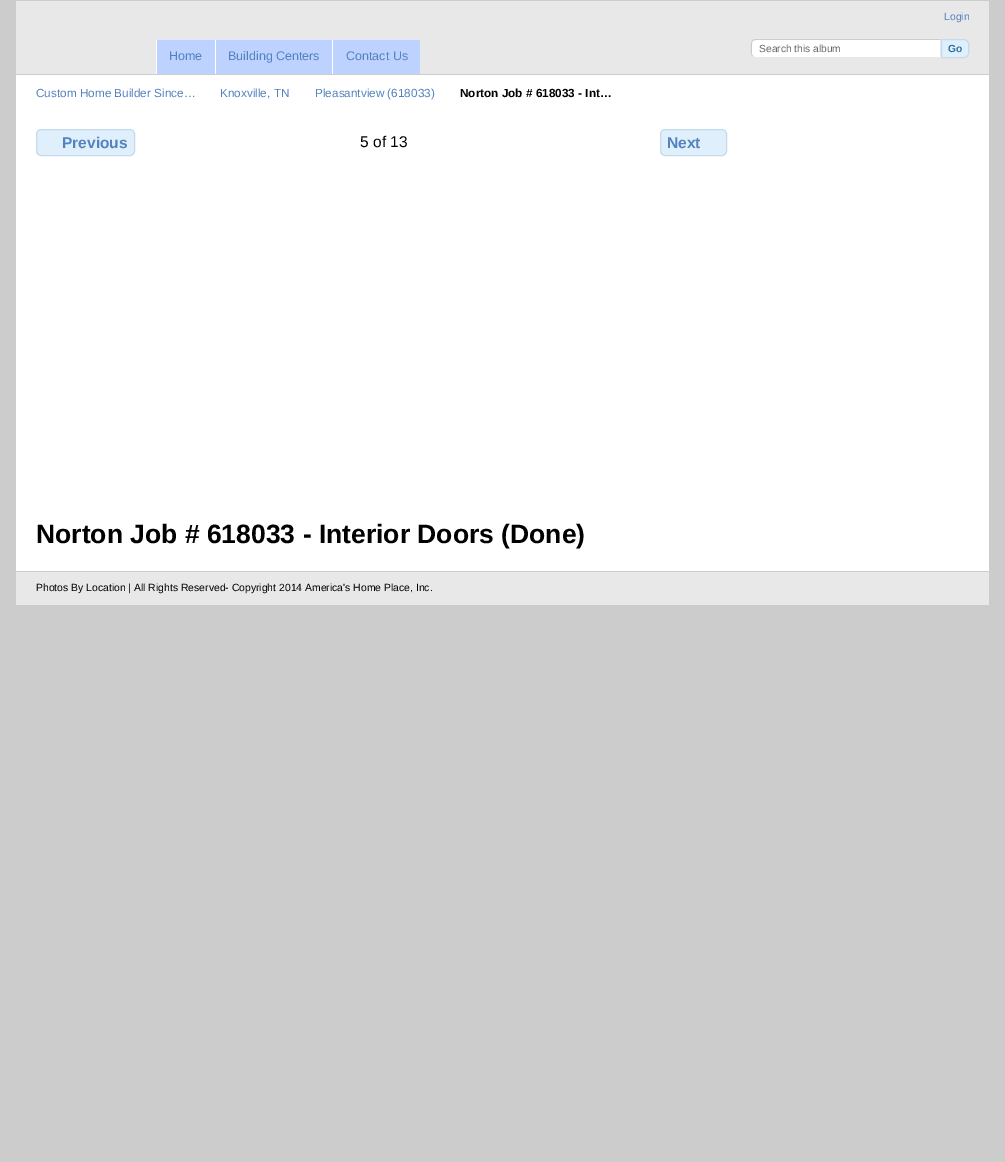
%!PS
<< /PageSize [1005 1162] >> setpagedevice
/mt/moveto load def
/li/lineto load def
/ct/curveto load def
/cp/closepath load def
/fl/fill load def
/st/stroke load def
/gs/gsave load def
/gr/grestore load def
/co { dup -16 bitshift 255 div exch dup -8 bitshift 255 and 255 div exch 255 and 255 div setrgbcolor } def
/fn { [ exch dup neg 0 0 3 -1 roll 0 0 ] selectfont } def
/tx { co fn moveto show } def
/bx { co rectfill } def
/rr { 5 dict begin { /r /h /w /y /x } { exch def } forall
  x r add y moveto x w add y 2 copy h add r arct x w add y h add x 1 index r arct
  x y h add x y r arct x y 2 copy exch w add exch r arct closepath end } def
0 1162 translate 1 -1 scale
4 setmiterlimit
0 0 1005 1162 16#CCCCCC bx
16 75 973 496 16#FFFFFF bx
16 1 973 73 16#E8E8E8 bx
16#FFFFFF co
756 39 mt 941 39 li 941 58 li 756 58 li 753 58 751 56 751 53 ct 751 44 li 751 41 753 39 756 39 ct cp fl
16#CCCCCC co
756 39 mt 754 39 753 40 752 40 ct 753 41 li 754 40 755 40 756 40 ct 940 40 li 941 39 li cp fl
16#E8E8E8 co
941 39 mt 940 40 li 940 57 li 941 58 li cp fl
941 58 mt 940 57 li 755 57 li 753 56 li 752 57 li 753 58 754 58 756 58 ct cp fl
16#CCCCCC co
751 44 mt 751 47 750 54.5 752.5 56.5 ct 753 56 li 752 54 li 752 43.5 li 752 42.5 752.5 41.5 753 41 ct 752.5 40.5 li 751.5 41 751 42.5 751 44 ct cp fl
16#DFEFFC co
941.5 39.5 mt 964 39.5 li 966.5 39.5 968.5 41.5 968.5 44 ct 968.5 53 li 968.5 55.5 966.5 57.5 964 57.5 ct 941.5 57.5 li cp gs fl gr
16#C5DBEC co
st
156 39 264 35 16#BDD2FF bx
16#DEE9FF co
156 39 mt 215 39 li 215 40 li 157 40 li cp fl
16#FFFFFF co
156 74 mt 156 39 li 157 40 li 157 74 li cp fl
16#DEE9FF co
215 39 mt 332 39 li 332 40 li 216 40 li cp fl
16#FFFFFF co
215 74 mt 215 39 li 216 40 li 216 74 li cp fl
16#DEE9FF co
332 39 mt 420 39 li 420 40 li 333 40 li cp fl
16#FFFFFF co
332 74 mt 332 39 li 333 40 li 333 74 li cp fl
16#DFEFFC co
36.5 129.5 98 26 4.5 rr gs fl gr
16#C5DBEC co
st
16#DFEFFC co
660.5 129.5 66 26 4.5 rr gs fl gr
16#C5DBEC co
st
16 572 973 33 16#E8E8E8 bx
(Login) 944 20 /LiberationSans-Regular 10.4 16#5382BF tx
(Search this album) 759 52 /LiberationSans-Regular 10.25 16#666666 tx
(Go) 948 52 /LiberationSans-Bold 10.25 16#2E6E9E tx
(Home) 169 60 /LiberationSans-Regular 12.5 16#5382BF tx
(Building Centers) 228 60 /LiberationSans-Regular 12.5 16#5382BF tx
(Contact Us) 346 60 /LiberationSans-Regular 12.5 16#5382BF tx
(Custom Home Builder Since…) 36 97 /LiberationSans-Regular 11.75 16#5382BF tx
(Knoxville, TN) 220 97 /LiberationSans-Regular 11.75 16#5382BF tx
(Pleasantview \(618033\)) 315 97 /LiberationSans-Regular 11.75 16#5382BF tx
(Norton Job # 618033 - Int…) 460 97 /LiberationSans-Bold 11.75 16#000000 tx
(Previous) 62 148 /LiberationSans-Bold 15.5 16#5382BF tx
(5 of 13) 360 147 /LiberationSans-Regular 15.5 16#000000 tx
(Next) 667 148 /LiberationSans-Bold 15.5 16#5382BF tx
(Norton Job # 618033 - Interior Doors \(Done\)) 36 543 /LiberationSans-Bold 26.5 16#000000 tx
(Photos By Location | All Rights Reserved- Copyright 2014 America's Home Place, Inc.) 36 591 /LiberationSans-Regular 10.4 16#000000 tx
showpage
